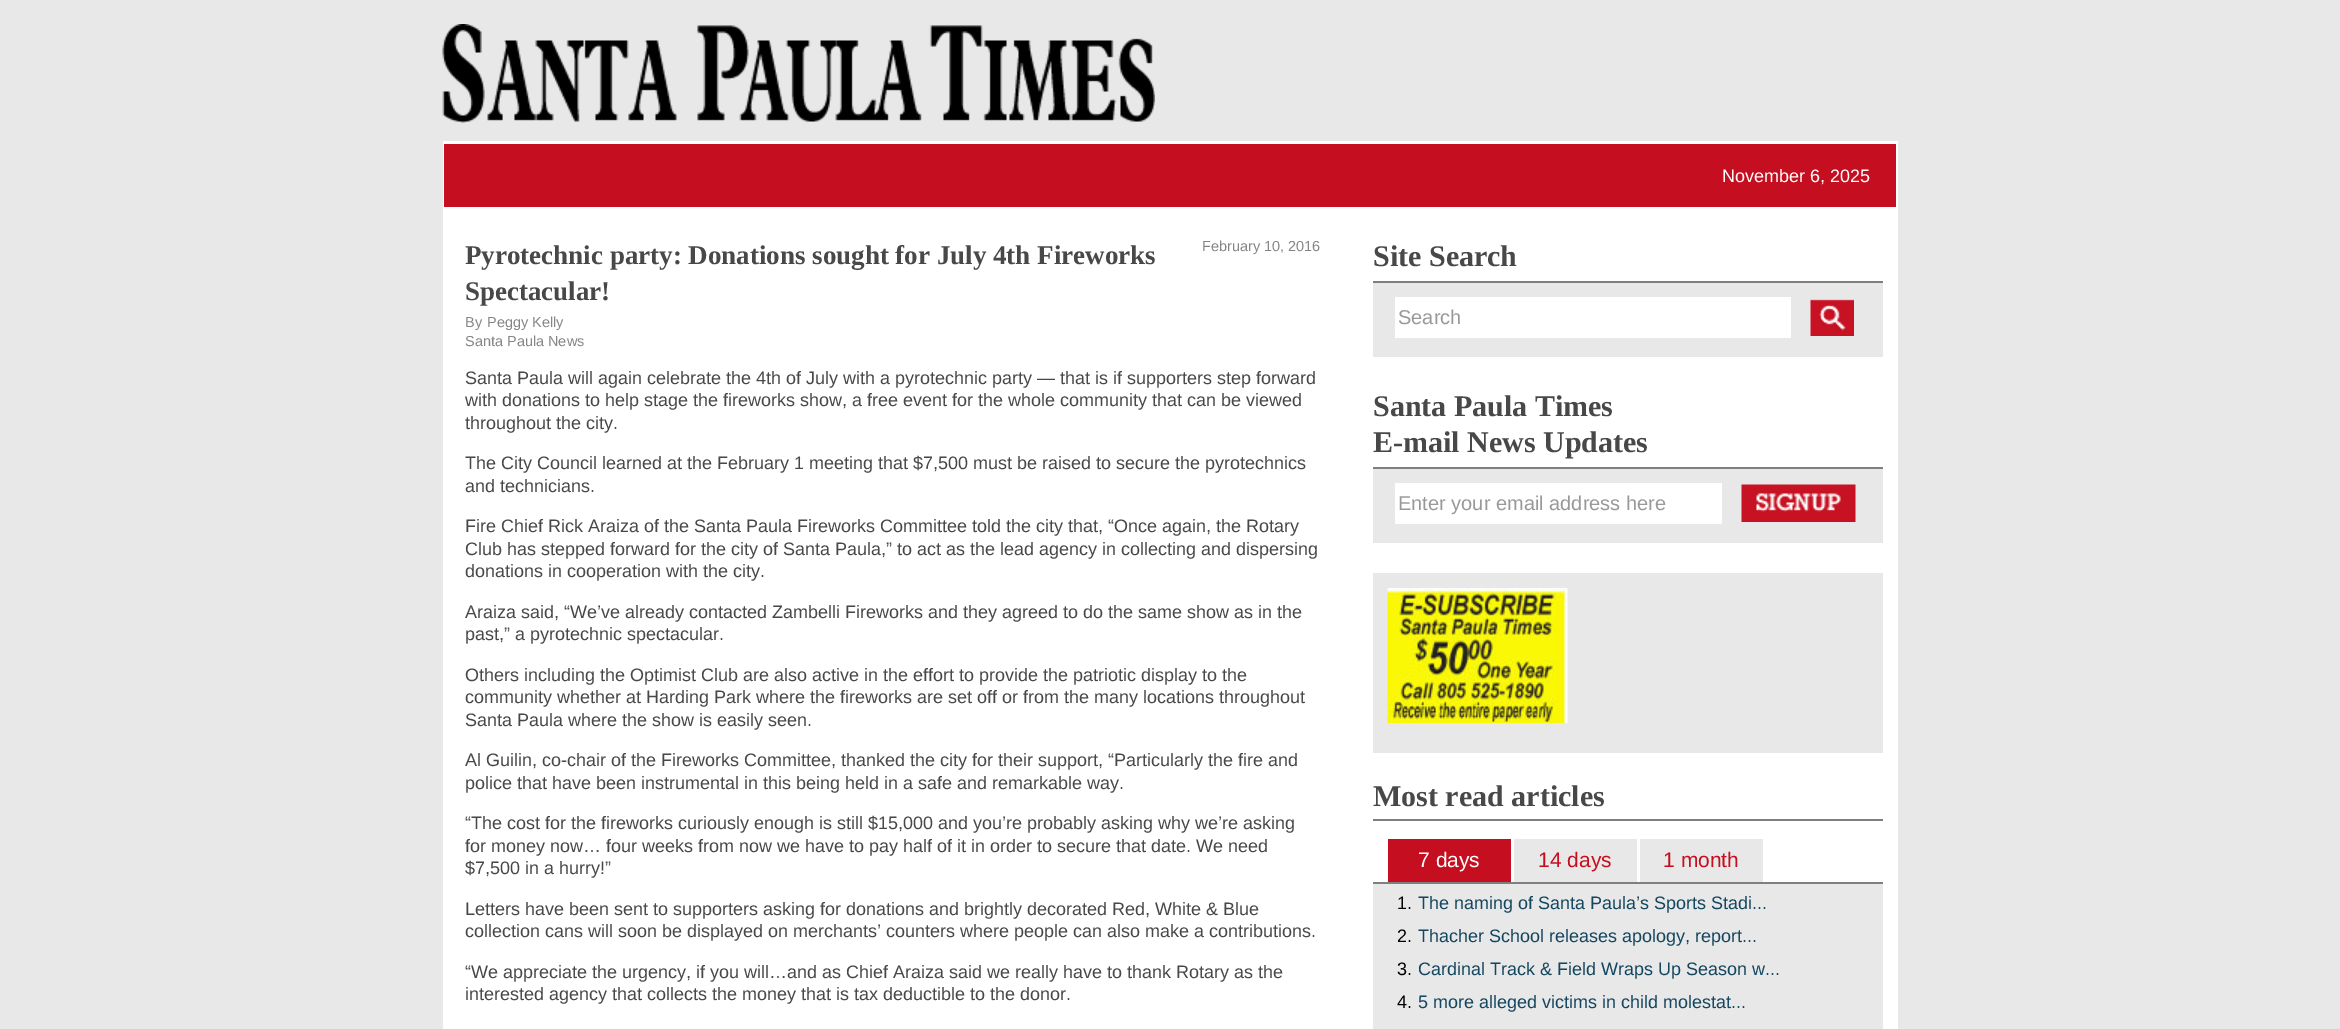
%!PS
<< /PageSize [2340 1029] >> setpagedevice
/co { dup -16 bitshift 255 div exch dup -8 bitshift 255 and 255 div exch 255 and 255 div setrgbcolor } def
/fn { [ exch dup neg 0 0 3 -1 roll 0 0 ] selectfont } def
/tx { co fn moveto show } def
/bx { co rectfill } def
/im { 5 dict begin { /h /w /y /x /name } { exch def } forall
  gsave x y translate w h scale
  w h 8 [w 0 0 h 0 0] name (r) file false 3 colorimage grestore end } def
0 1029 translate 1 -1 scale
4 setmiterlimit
0 0 2340 1029 16#E8E8E8 bx
(media/1.raw) 442 24 713 99 im
443 141 1455 888 16#FFFFFF bx
444 144 1452 63 16#C50E1F bx
1373 281 510 2 16#7F7F7F bx
1373 283 510 74 16#E8E8E8 bx
1395 297 396 41 16#FFFFFF bx
(media/2.raw) 1810 299 44 37 im
1373 467 510 2 16#7F7F7F bx
1373 469 510 74 16#E8E8E8 bx
1395 483 327 41 16#FFFFFF bx
(media/3.raw) 1741 484 115 38 im
1373 573 510 180 16#E8E8E8 bx
(media/4.raw) 1387 588 181 135 im
1373 819 510 2 16#7F7F7F bx
1388 839 123 43 16#C50E1F bx
1514 839 123 43 16#E8E8E8 bx
1640 839 123 43 16#E8E8E8 bx
1373 884 510 145 16#E8E8E8 bx
1373 882 510 2 16#7F7F7F bx
(November 6, 2025) 1722 182 /LiberationSans-Regular 18 16#FFFFFF tx
(Pyrotechnic party: Donations sought for July 4th Fireworks) 465 264 /LiberationSerif-Bold 27 16#484848 tx
(Spectacular!) 465 300 /LiberationSerif-Bold 27 16#484848 tx
(February 10, 2016) 1202 251 /LiberationSans-Regular 14.5 16#858585 tx
(By) 465 327 /LiberationSans-Regular 14.5 16#858585 tx
(Peggy Kelly) 487 327 /LiberationSans-Regular 14.5 16#858585 tx
(Santa Paula News) 465 346 /LiberationSans-Regular 14.5 16#858585 tx
(Santa Paula will again celebrate the 4th of July with a pyrotechnic party — that is if supporters step forward) 465 384 /LiberationSans-Regular 18 16#484848 tx
(with donations to help stage the fireworks show, a free event for the whole community that can be viewed) 465 406 /LiberationSans-Regular 18 16#484848 tx
(throughout the city.) 465 429 /LiberationSans-Regular 18 16#484848 tx
(The City Council learned at the February 1 meeting that $7,500 must be raised to secure the pyrotechnics) 465 469 /LiberationSans-Regular 18 16#484848 tx
(and technicians.) 465 492 /LiberationSans-Regular 18 16#484848 tx
(Fire Chief Rick Araiza of the Santa Paula Fireworks Committee told the city that, “Once again, the Rotary) 465 532 /LiberationSans-Regular 18 16#484848 tx
(Club has stepped forward for the city of Santa Paula,” to act as the lead agency in collecting and dispersing) 465 555 /LiberationSans-Regular 18 16#484848 tx
(donations in cooperation with the city.) 465 577 /LiberationSans-Regular 18 16#484848 tx
(Araiza said, “We’ve already contacted Zambelli Fireworks and they agreed to do the same show as in the) 465 618 /LiberationSans-Regular 18 16#484848 tx
(past,” a pyrotechnic spectacular.) 465 640 /LiberationSans-Regular 18 16#484848 tx
(Others including the Optimist Club are also active in the effort to provide the patriotic display to the) 465 681 /LiberationSans-Regular 18 16#484848 tx
(community whether at Harding Park where the fireworks are set off or from the many locations throughout) 465 703 /LiberationSans-Regular 18 16#484848 tx
(Santa Paula where the show is easily seen.) 465 726 /LiberationSans-Regular 18 16#484848 tx
(Al Guilin, co-chair of the Fireworks Committee, thanked the city for their support, “Particularly the fire and) 465 766 /LiberationSans-Regular 18 16#484848 tx
(police that have been instrumental in this being held in a safe and remarkable way.) 465 789 /LiberationSans-Regular 18 16#484848 tx
(“The cost for the fireworks curiously enough is still $15,000 and you’re probably asking why we’re asking) 465 829 /LiberationSans-Regular 18 16#484848 tx
(for money now… four weeks from now we have to pay half of it in order to secure that date. We need) 465 852 /LiberationSans-Regular 18 16#484848 tx
($7,500 in a hurry!”) 465 874 /LiberationSans-Regular 18 16#484848 tx
(Letters have been sent to supporters asking for donations and brightly decorated Red, White & Blue) 465 915 /LiberationSans-Regular 18 16#484848 tx
(collection cans will soon be displayed on merchants’ counters where people can also make a contributions.) 465 937 /LiberationSans-Regular 18 16#484848 tx
(“We appreciate the urgency, if you will…and as Chief Araiza said we really have to thank Rotary as the) 465 978 /LiberationSans-Regular 18 16#484848 tx
(interested agency that collects the money that is tax deductible to the donor.) 465 1000 /LiberationSans-Regular 18 16#484848 tx
(Site Search) 1373 266 /LiberationSerif-Bold 30 16#484848 tx
(Search) 1398 324 /LiberationSans-Regular 20 16#999999 tx
(Santa Paula Times) 1373 416 /LiberationSerif-Bold 30 16#484848 tx
(E-mail News Updates) 1373 452 /LiberationSerif-Bold 30 16#484848 tx
(Enter your email address here) 1398 510 /LiberationSans-Regular 20 16#999999 tx
(Most read articles) 1373 806 /LiberationSerif-Bold 30 16#484848 tx
(7 days) 1418 867 /LiberationSans-Regular 21 16#FFFFFF tx
(14 days) 1538 867 /LiberationSans-Regular 21 16#C50E1F tx
(1 month) 1663 867 /LiberationSans-Regular 21 16#C50E1F tx
(1.) 1397 909 /LiberationSans-Regular 18 16#000000 tx
(The naming of Santa Paula’s Sports Stadi...) 1418 909 /LiberationSans-Regular 18 16#13465F tx
(2.) 1397 942 /LiberationSans-Regular 18 16#000000 tx
(Thacher School releases apology, report...) 1418 942 /LiberationSans-Regular 18 16#13465F tx
(3.) 1397 975 /LiberationSans-Regular 18 16#000000 tx
(Cardinal Track & Field Wraps Up Season w...) 1418 975 /LiberationSans-Regular 18 16#13465F tx
(4.) 1397 1008 /LiberationSans-Regular 18 16#000000 tx
(5 more alleged victims in child molestat...) 1418 1008 /LiberationSans-Regular 18 16#13465F tx
showpage
